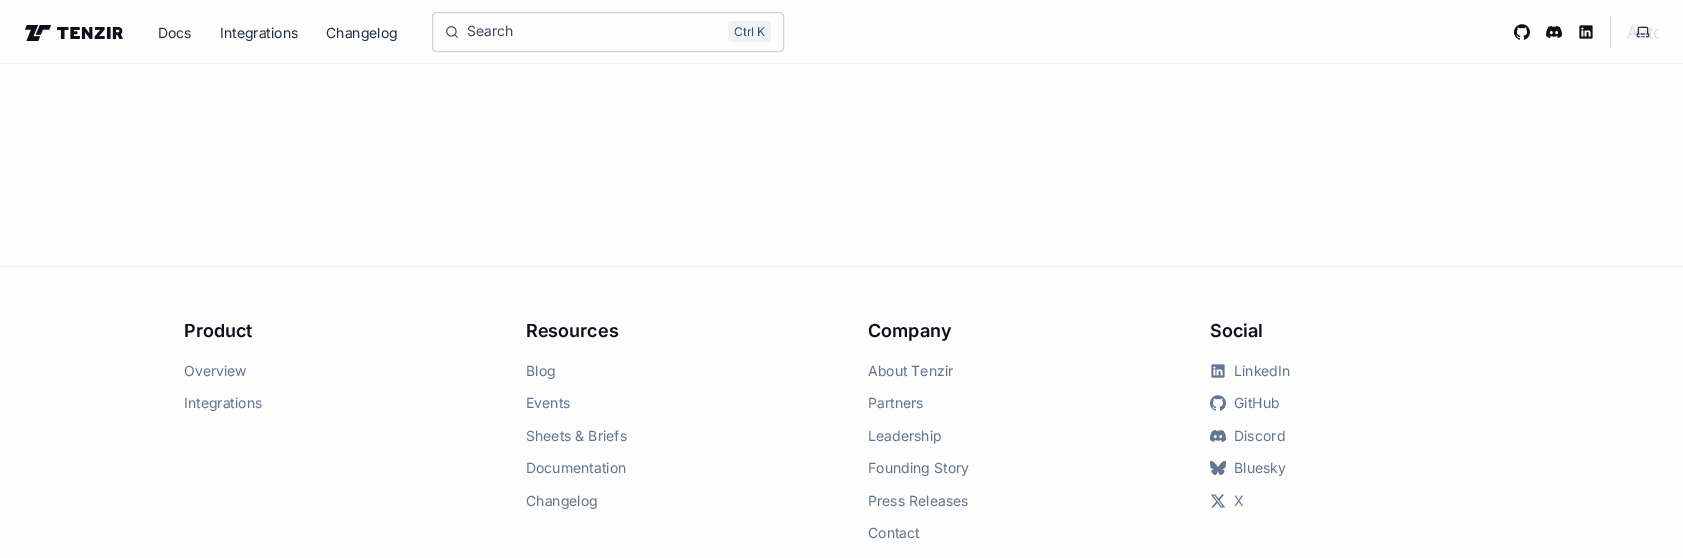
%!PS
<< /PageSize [1683 558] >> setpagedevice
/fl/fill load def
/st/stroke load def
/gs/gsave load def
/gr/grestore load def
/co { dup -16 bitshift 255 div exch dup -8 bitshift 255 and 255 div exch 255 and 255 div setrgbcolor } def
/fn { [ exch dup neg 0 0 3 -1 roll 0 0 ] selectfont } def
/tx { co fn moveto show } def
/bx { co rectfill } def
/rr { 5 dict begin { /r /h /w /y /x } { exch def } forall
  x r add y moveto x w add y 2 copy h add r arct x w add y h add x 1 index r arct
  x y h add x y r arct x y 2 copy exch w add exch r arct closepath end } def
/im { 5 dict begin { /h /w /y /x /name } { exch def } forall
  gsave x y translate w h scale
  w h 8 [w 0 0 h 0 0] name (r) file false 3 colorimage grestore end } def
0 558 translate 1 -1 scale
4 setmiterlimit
0 0 1683 558 16#FDFDFE bx
0 63 1683 1 16#F0F1F5 bx
(media/1.raw) 25 25 98 16 im
16#CED3DE co
432.5 12.5 351 39 3.5 rr st
(media/2.raw) 446 26 12 12 im
16#F0F1F5 co
728 21 43 21 4 rr fl
(media/3.raw) 1514 24 16 16 im
(media/4.raw) 1546 26 16 12 im
(media/5.raw) 1579 25 14 14 im
1610 16 1 32 16#CED3DE bx
(media/6.raw) 1636 26 14 12 im
0 266 1683 1 16#F0F1F5 bx
(media/7.raw) 1211 364 14 14 im
(media/8.raw) 1210 395 16 16 im
(media/9.raw) 1210 430 16 12 im
(media/10.raw) 1210 460 16 15 im
(media/11.raw) 1211 494 15 14 im
(Docs) 158 38 /Inter-Regular 14 16#262E40 tx
(Integrations) 220 38 /Inter-Regular 14 16#262E40 tx
(Changelog) 326 38 /Inter-Regular 14 16#262E40 tx
(Search) 467 36 /Inter-Regular 14 16#414B62 tx
(Ctrl) 734 36 /Inter-Regular 12 16#414B62 tx
(K) 757 36 /Inter-Regular 12 16#414B62 tx
gs
1627 18 32 28 rectclip
(Auto) 1627 38 /Inter-Regular 16 16#DEDFE2 tx
gr
(Product) 184 337 /Inter-SemiBold 18 16#0E1017 tx
(Overview) 184 376 /Inter-Regular 14 16#68738D tx
(Integrations) 184 408 /Inter-Regular 14 16#68738D tx
(Resources) 526 337 /Inter-SemiBold 18 16#0E1017 tx
(Blog) 526 376 /Inter-Regular 14 16#68738D tx
(Events) 526 408 /Inter-Regular 14 16#68738D tx
(Sheets & Briefs) 526 441 /Inter-Regular 14 16#68738D tx
(Documentation) 526 473 /Inter-Regular 14 16#68738D tx
(Changelog) 526 506 /Inter-Regular 14 16#68738D tx
(Company) 868 337 /Inter-SemiBold 18 16#0E1017 tx
(About Tenzir) 868 376 /Inter-Regular 14 16#68738D tx
(Partners) 868 408 /Inter-Regular 14 16#68738D tx
(Leadership) 868 441 /Inter-Regular 14 16#68738D tx
(Founding Story) 868 473 /Inter-Regular 14 16#68738D tx
(Press Releases) 868 506 /Inter-Regular 14 16#68738D tx
(Contact) 868 538 /Inter-Regular 14 16#68738D tx
(Social) 1210 337 /Inter-SemiBold 18 16#0E1017 tx
(LinkedIn) 1234 376 /Inter-Regular 14 16#68738D tx
(GitHub) 1234 408 /Inter-Regular 14 16#68738D tx
(Discord) 1234 441 /Inter-Regular 14 16#68738D tx
(Bluesky) 1234 473 /Inter-Regular 14 16#68738D tx
(X) 1234 506 /Inter-Regular 14 16#68738D tx
showpage
